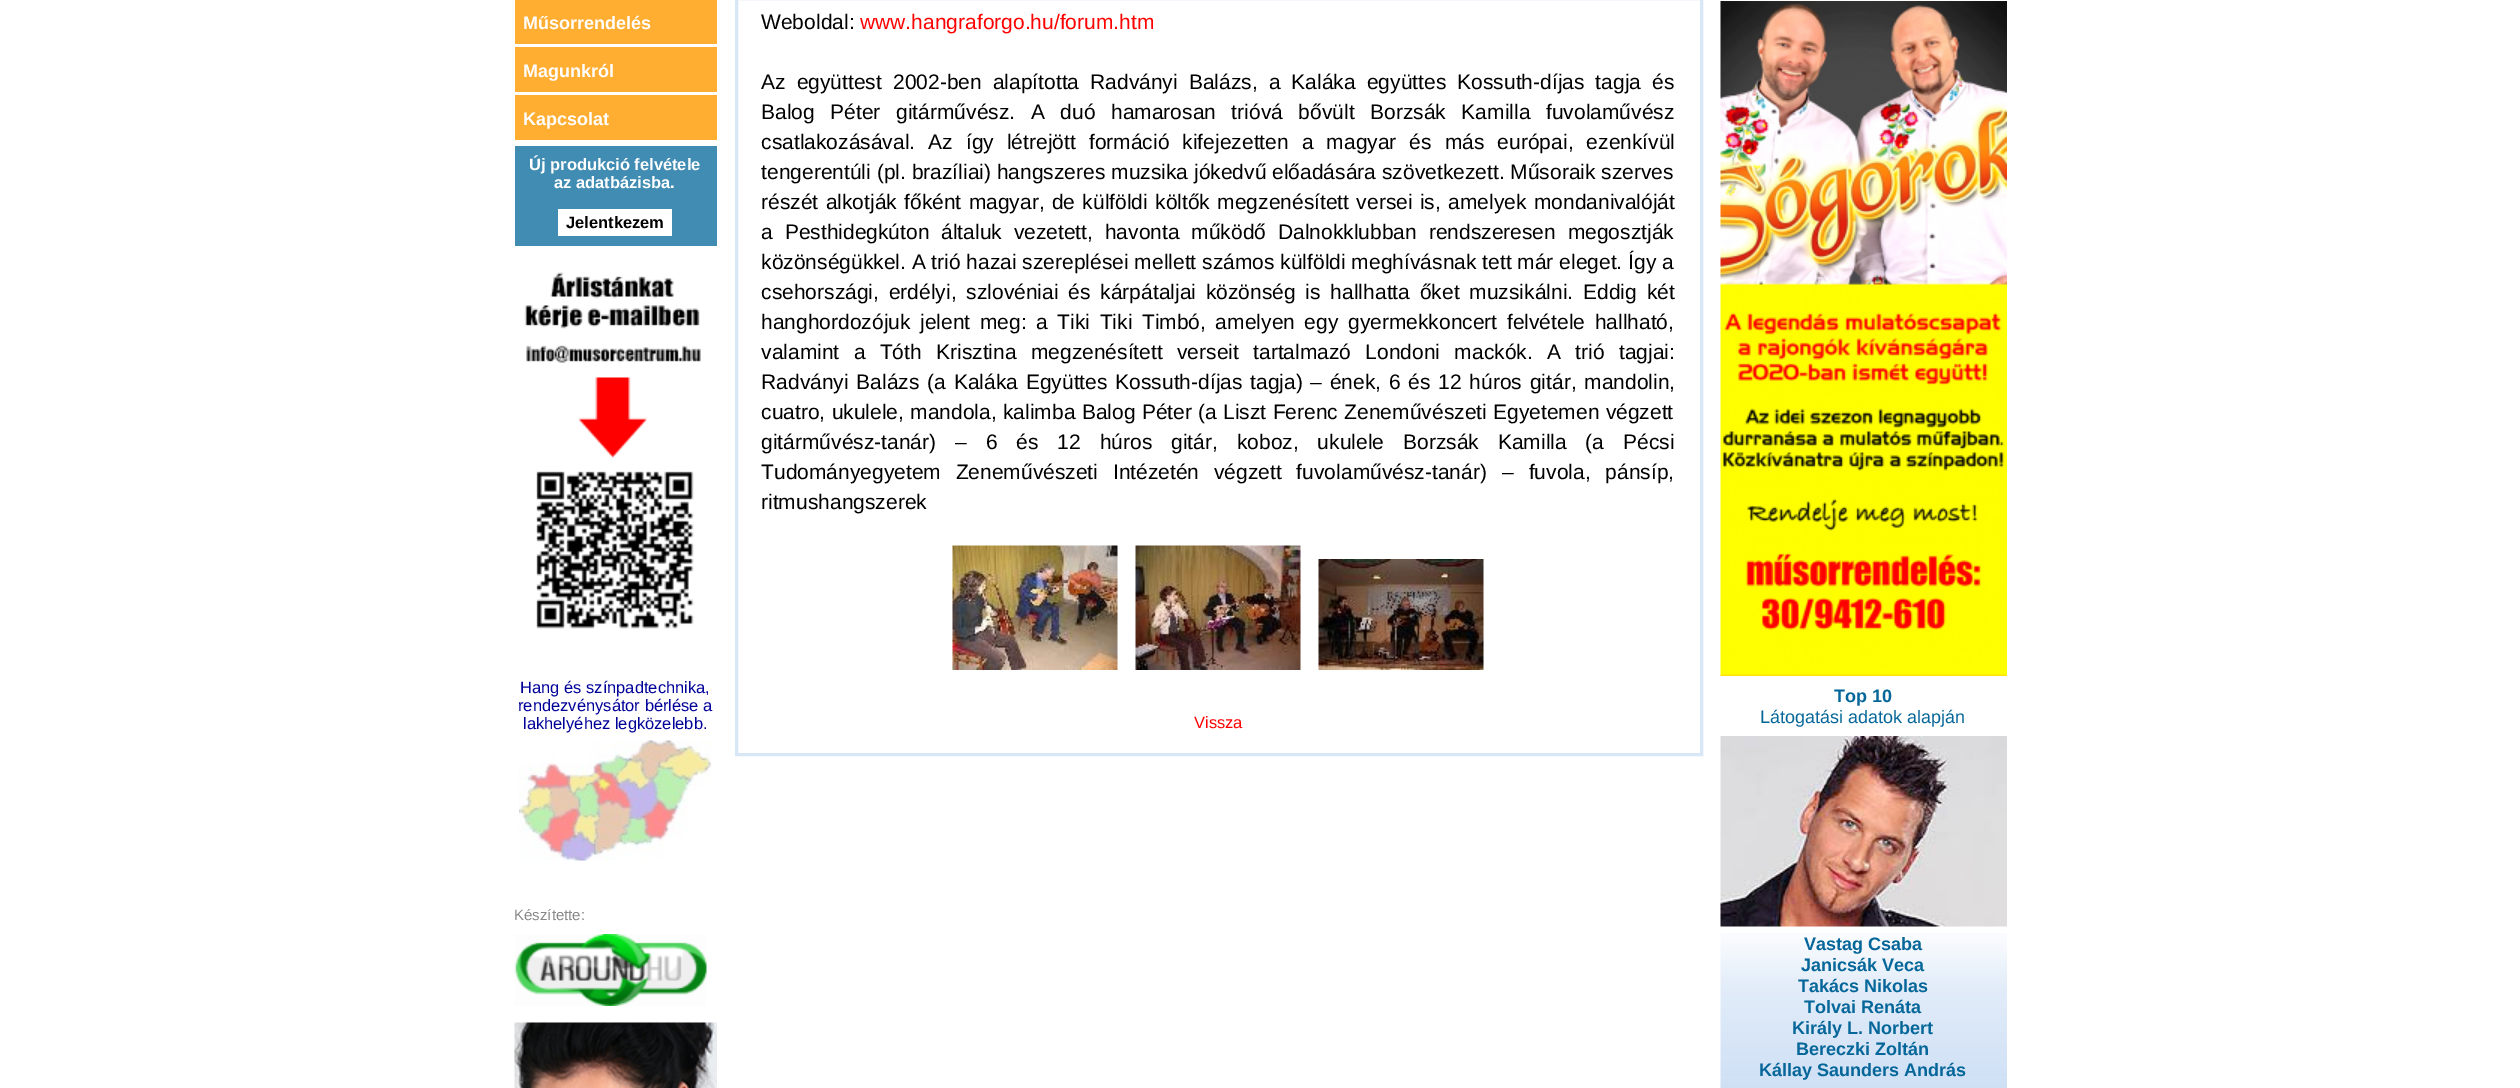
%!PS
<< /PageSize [2520 1088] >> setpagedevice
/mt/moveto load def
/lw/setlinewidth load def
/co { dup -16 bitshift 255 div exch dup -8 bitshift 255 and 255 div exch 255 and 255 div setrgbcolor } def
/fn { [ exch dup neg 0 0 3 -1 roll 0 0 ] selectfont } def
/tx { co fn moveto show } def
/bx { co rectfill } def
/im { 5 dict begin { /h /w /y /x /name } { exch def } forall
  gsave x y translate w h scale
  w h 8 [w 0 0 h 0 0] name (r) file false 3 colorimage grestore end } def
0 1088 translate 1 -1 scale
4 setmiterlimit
0 0 2520 1088 16#FFFFFF bx
515 0 202 44 16#FFAE31 bx
515 47 202 45 16#FFAE31 bx
515 95 202 45 16#FFAE31 bx
515 146 202 100 16#418CB3 bx
558 209 114 27 16#FFFFFF bx
(media/1.raw) 524 272 177 357 im
(media/2.raw) 519 740 192 121 im
(media/3.raw) 514 934 193 72 im
(media/4.raw) 514 1022 203 66 im
16#D7E7F6 co
3 lw
736.5 -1.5 965 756 rectstroke
(media/5.raw) 952 545 166 125 im
(media/6.raw) 1135 545 166 125 im
(media/7.raw) 1318 559 166 111 im
(media/8.raw) 1720 1 287 675 im
(media/9.raw) 1720 736 287 191 im
(media/10.raw) 1720 933 287 155 im
(Műsorrendelés) 523 29 /LiberationSans-Bold 18 16#FFFFFF tx
(Magunkról) 523 77 /LiberationSans-Bold 18 16#FFFFFF tx
(Kapcsolat) 523 125 /LiberationSans-Bold 18 16#FFFFFF tx
(Új produkció felvétele) 529 170 /LiberationSans-Bold 16.5 16#FFFFFF tx
(az adatbázisba.) 554 188 /LiberationSans-Bold 16.5 16#FFFFFF tx
(Jelentkezem) 566 228 /LiberationSans-Bold 16.5 16#000000 tx
(Hang és színpadtechnika,) 520 693 /LiberationSans-Regular 16.5 16#000099 tx
(rendezvénysátor bérlése a) 518 711 /LiberationSans-Regular 16.5 16#000099 tx
(lakhelyéhez legközelebb.) 523 729 /LiberationSans-Regular 16.5 16#000099 tx
(Készítette:) 514 920 /LiberationSans-Regular 15 16#888888 tx
(Weboldal:) 761 29 /LiberationSans-Regular 21 16#000000 tx
(www.hangraforgo.hu/forum.htm) 860 29 /LiberationSans-Regular 21 16#FF0000 tx
16#000000 co
761 89 mt 5.25 0 32 (Az együttest 2002-ben alapította Radványi Balázs, a Kaláka együttes Kossuth-díjas tagja és) widthshow
761 119 mt 9.75 0 32 (Balog Péter gitárművész. A duó hamarosan trióvá bővült Borzsák Kamilla fuvolaművész) widthshow
761 149 mt 7.25 0 32 (csatlakozásával. Az így létrejött formáció kifejezetten a magyar és más európai, ezenkívül) widthshow
(tengerentúli \(pl. brazíliai\) hangszeres muzsika jókedvű előadására szövetkezett. Műsoraik szerves) 761 179 /LiberationSans-Regular 21 16#000000 tx
761 209 mt 1.5 0 32 (részét alkotják főként magyar, de külföldi költők megzenésített versei is, amelyek mondanivalóját) widthshow
761 239 mt 6 0 32 (a Pesthidegkúton általuk vezetett, havonta működő Dalnokklubban rendszeresen megosztják) widthshow
(közönségükkel. A trió hazai szereplései mellett számos külföldi meghívásnak tett már eleget. Így a) 761 269 /LiberationSans-Regular 21 16#000000 tx
761 299 mt 4 0 32 (csehországi, erdélyi, szlovéniai és kárpátaljai közönség is hallhatta őket muzsikálni.) widthshow
1583 299 mt 4 0 32 (Eddig két) widthshow
761 329 mt 3.75 0 32 (hanghordozójuk jelent meg: a Tiki Tiki Timbó, amelyen egy gyermekkoncert felvétele hallható,) widthshow
761 359 mt 8.5 0 32 (valamint a Tóth Krisztina megzenésített verseit tartalmazó Londoni mackók.) widthshow
1547 359 mt 8.5 0 32 (A trió tagjai:) widthshow
761 389 mt 2 0 32 (Radványi Balázs \(a Kaláka Együttes Kossuth-díjas tagja\)) widthshow
1310 389 mt 2 0 32 (– ének, 6 és 12 húros gitár, mandolin,) widthshow
761 419 mt .5 0 32 (cuatro, ukulele, mandola, kalimba Balog Péter \(a Liszt Ferenc Zeneművészeti Egyetemen végzett) widthshow
(gitárművész-tanár\)) 761 449 /LiberationSans-Regular 21 16#000000 tx
955 449 mt 13.1 0 32 (– 6 és 12 húros gitár, koboz, ukulele Borzsák Kamilla \(a Pécsi) widthshow
761 479 mt 9 0 32 (Tudományegyetem Zeneművészeti Intézetén végzett fuvolaművész-tanár\)) widthshow
1502 479 mt 9 0 32 (– fuvola, pánsíp,) widthshow
(ritmushangszerek) 761 509 /LiberationSans-Regular 21 16#000000 tx
(Vissza) 1194 728 /LiberationSans-Regular 16.5 16#FF0000 tx
(Top 10) 1834 702 /LiberationSans-Bold 18 16#056699 tx
(Látogatási adatok alapján) 1760 723 /LiberationSans-Regular 18 16#056699 tx
(Vastag Csaba) 1804 950 /LiberationSans-Bold 18 16#056699 tx
(Janicsák Veca) 1801 971 /LiberationSans-Bold 18 16#056699 tx
(Takács Nikolas) 1798 992 /LiberationSans-Bold 18 16#056699 tx
(Tolvai Renáta) 1804 1013 /LiberationSans-Bold 18 16#056699 tx
(Király L. Norbert) 1792 1034 /LiberationSans-Bold 18 16#056699 tx
(Bereczki Zoltán) 1796 1055 /LiberationSans-Bold 18 16#056699 tx
(Kállay Saunders András) 1759 1076 /LiberationSans-Bold 18 16#056699 tx
showpage
